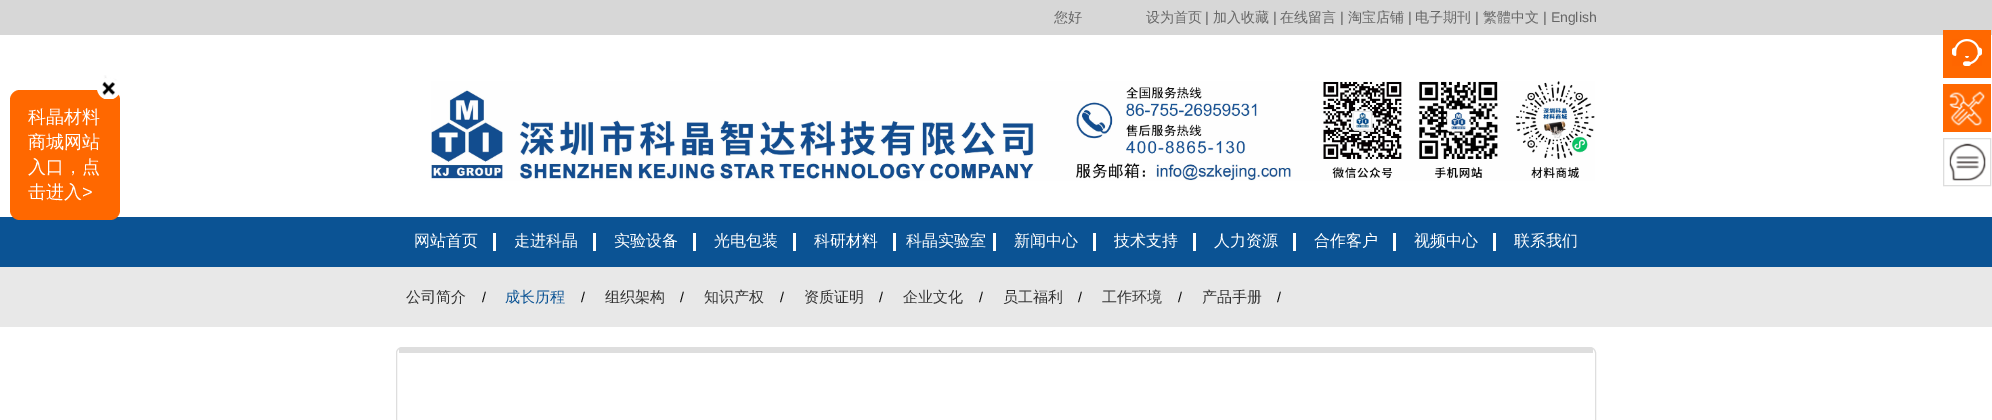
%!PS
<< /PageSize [1992 420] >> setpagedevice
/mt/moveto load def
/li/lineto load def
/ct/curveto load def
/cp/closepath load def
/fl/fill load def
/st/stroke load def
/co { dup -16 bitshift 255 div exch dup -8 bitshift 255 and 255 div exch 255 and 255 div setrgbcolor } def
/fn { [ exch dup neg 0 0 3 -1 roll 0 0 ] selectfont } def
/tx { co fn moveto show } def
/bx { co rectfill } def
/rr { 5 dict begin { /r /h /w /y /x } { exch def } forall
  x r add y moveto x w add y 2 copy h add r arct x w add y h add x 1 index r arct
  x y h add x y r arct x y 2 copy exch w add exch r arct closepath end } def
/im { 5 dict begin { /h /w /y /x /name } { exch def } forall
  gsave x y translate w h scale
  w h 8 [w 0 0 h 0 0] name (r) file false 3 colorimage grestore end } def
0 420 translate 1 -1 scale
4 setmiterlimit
0 0 1992 420 16#FFFFFF bx
0 0 1992 35 16#D7D7D7 bx
0 217 1992 50 16#0B5394 bx
16#FF6800 co
10 90 110 130 10 rr fl
(media/1.raw) 97 75 22 24 im
(media/2.raw) 431 81 1164 100 im
493 233 3 18 16#FFFFFF bx
593 233 3 18 16#FFFFFF bx
693 233 3 18 16#FFFFFF bx
793 233 3 18 16#FFFFFF bx
893 233 3 18 16#FFFFFF bx
993 233 3 18 16#FFFFFF bx
1093 233 3 18 16#FFFFFF bx
1193 233 3 18 16#FFFFFF bx
1293 233 3 18 16#FFFFFF bx
1393 233 3 18 16#FFFFFF bx
1493 233 3 18 16#FFFFFF bx
0 267 1992 60 16#E8E8E8 bx
16#DEDEDE co
402 347.5 mt 1590 347.5 li 1593 347.5 1595.5 350 1595.5 353 ct 1595.5 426.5 li 396.5 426.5 li 396.5 353 li 396.5 350 399 347.5 402 347.5 ct cp st
399 348 1194 5 16#DEDEDE bx
1943 30 48 48 16#FF6800 bx
(media/3.raw) 1952 39 30 27 im
1943 84 48 48 16#FF6800 bx
(media/4.raw) 1949 91 36 35 im
16#DDDDDD co
1943.5 138.5 47 47 rectstroke
(media/5.raw) 1949 143 37 38 im
(您好) 1054 22 /WenQuanYiZenHei-Medium 14 16#666666 tx
(设为首页) 1146 22 /WenQuanYiZenHei-Medium 14 16#666666 tx
(|) 1205 22 /LiberationSans-Regular 14 16#666666 tx
(加入收藏) 1213 22 /WenQuanYiZenHei-Medium 14 16#666666 tx
(|) 1273 22 /LiberationSans-Regular 14 16#666666 tx
(在线留言) 1280 22 /WenQuanYiZenHei-Medium 14 16#666666 tx
(|) 1340 22 /LiberationSans-Regular 14 16#666666 tx
(淘宝店铺) 1348 22 /WenQuanYiZenHei-Medium 14 16#666666 tx
(|) 1408 22 /LiberationSans-Regular 14 16#666666 tx
(电子期刊) 1415 22 /WenQuanYiZenHei-Medium 14 16#666666 tx
(|) 1475 22 /LiberationSans-Regular 14 16#666666 tx
(繁體中文) 1483 22 /WenQuanYiZenHei-Medium 14 16#666666 tx
(| English) 1543 22 /LiberationSans-Regular 14 16#666666 tx
(科晶材料) 28 123 /WenQuanYiZenHei-Medium 18 16#FFFFFF tx
(商城网站) 28 148 /WenQuanYiZenHei-Medium 18 16#FFFFFF tx
(入口，点) 28 173 /WenQuanYiZenHei-Medium 18 16#FFFFFF tx
(击进入) 28 198 /WenQuanYiZenHei-Medium 18 16#FFFFFF tx
(>) 82 198 /LiberationSans-Regular 18 16#FFFFFF tx
(网站首页) 414 246 /WenQuanYiZenHei-Medium 16 16#FFFFFF tx
(走进科晶) 514 246 /WenQuanYiZenHei-Medium 16 16#FFFFFF tx
(实验设备) 614 246 /WenQuanYiZenHei-Medium 16 16#FFFFFF tx
(光电包装) 714 246 /WenQuanYiZenHei-Medium 16 16#FFFFFF tx
(科研材料) 814 246 /WenQuanYiZenHei-Medium 16 16#FFFFFF tx
(科晶实验室) 906 246 /WenQuanYiZenHei-Medium 16 16#FFFFFF tx
(新闻中心) 1014 246 /WenQuanYiZenHei-Medium 16 16#FFFFFF tx
(技术支持) 1114 246 /WenQuanYiZenHei-Medium 16 16#FFFFFF tx
(人力资源) 1214 246 /WenQuanYiZenHei-Medium 16 16#FFFFFF tx
(合作客户) 1314 246 /WenQuanYiZenHei-Medium 16 16#FFFFFF tx
(视频中心) 1414 246 /WenQuanYiZenHei-Medium 16 16#FFFFFF tx
(联系我们) 1514 246 /WenQuanYiZenHei-Medium 16 16#FFFFFF tx
(公司简介) 406 302 /WenQuanYiZenHei-Medium 15 16#333333 tx
(/) 482 302 /LiberationSans-Regular 14 16#000000 tx
(成长历程) 505 302 /WenQuanYiZenHei-Medium 15 16#0B5394 tx
(/) 581 302 /LiberationSans-Regular 14 16#000000 tx
(组织架构) 605 302 /WenQuanYiZenHei-Medium 15 16#333333 tx
(/) 680 302 /LiberationSans-Regular 14 16#000000 tx
(知识产权) 704 302 /WenQuanYiZenHei-Medium 15 16#333333 tx
(/) 780 302 /LiberationSans-Regular 14 16#000000 tx
(资质证明) 804 302 /WenQuanYiZenHei-Medium 15 16#333333 tx
(/) 879 302 /LiberationSans-Regular 14 16#000000 tx
(企业文化) 903 302 /WenQuanYiZenHei-Medium 15 16#333333 tx
(/) 979 302 /LiberationSans-Regular 14 16#000000 tx
(员工福利) 1003 302 /WenQuanYiZenHei-Medium 15 16#333333 tx
(/) 1078 302 /LiberationSans-Regular 14 16#000000 tx
(工作环境) 1102 302 /WenQuanYiZenHei-Medium 15 16#333333 tx
(/) 1178 302 /LiberationSans-Regular 14 16#000000 tx
(产品手册) 1202 302 /WenQuanYiZenHei-Medium 15 16#333333 tx
(/) 1277 302 /LiberationSans-Regular 14 16#000000 tx
showpage
